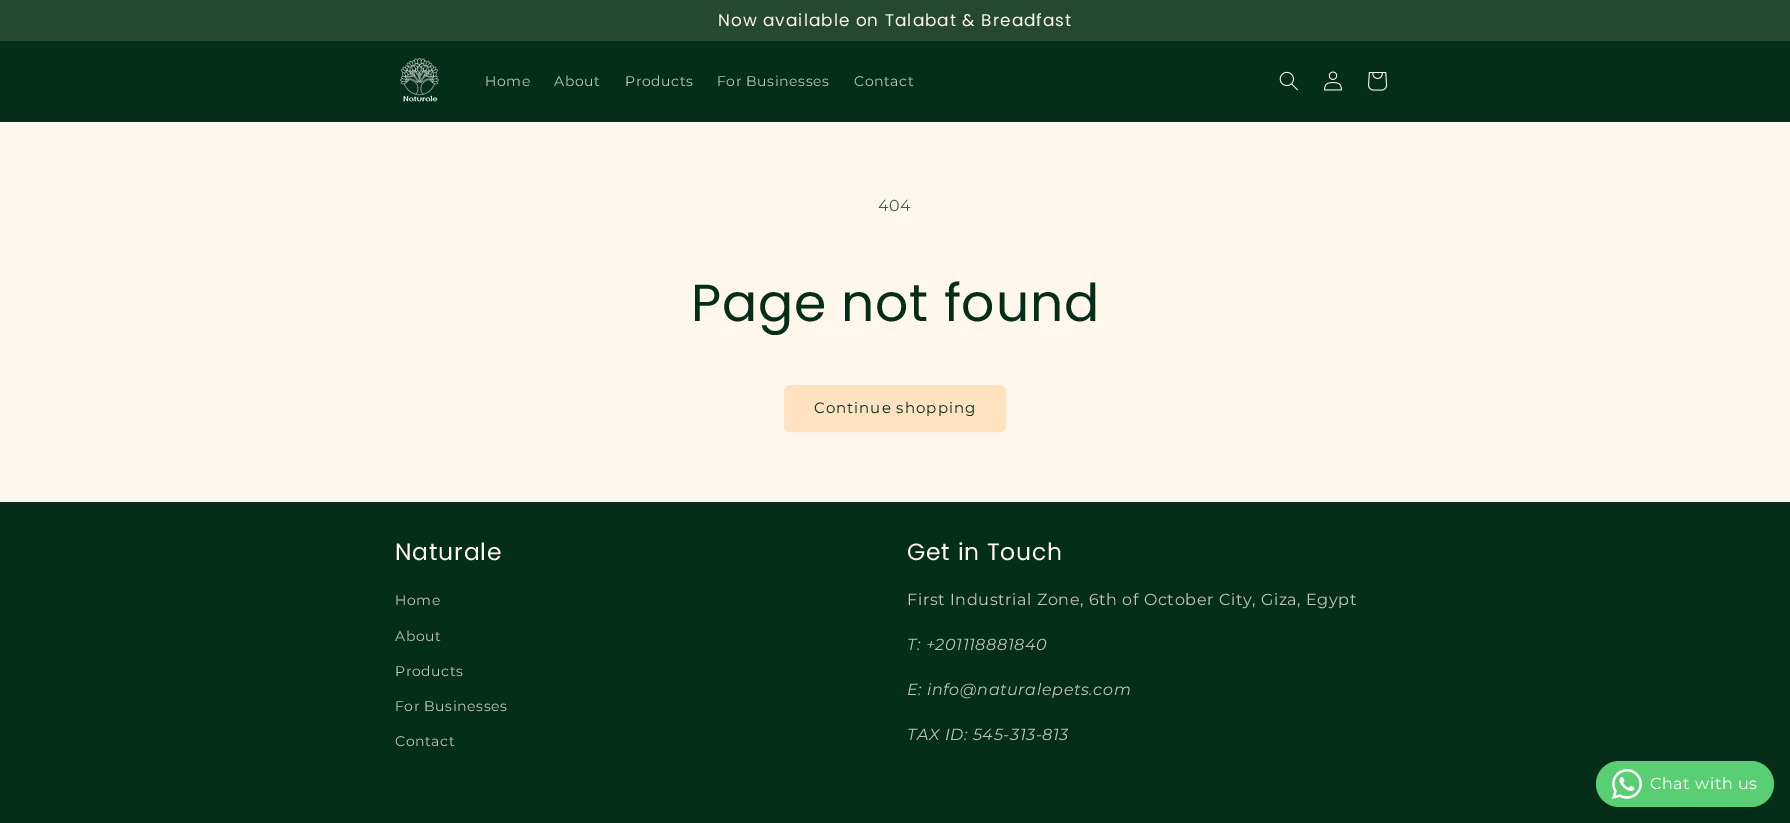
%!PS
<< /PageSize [1790 823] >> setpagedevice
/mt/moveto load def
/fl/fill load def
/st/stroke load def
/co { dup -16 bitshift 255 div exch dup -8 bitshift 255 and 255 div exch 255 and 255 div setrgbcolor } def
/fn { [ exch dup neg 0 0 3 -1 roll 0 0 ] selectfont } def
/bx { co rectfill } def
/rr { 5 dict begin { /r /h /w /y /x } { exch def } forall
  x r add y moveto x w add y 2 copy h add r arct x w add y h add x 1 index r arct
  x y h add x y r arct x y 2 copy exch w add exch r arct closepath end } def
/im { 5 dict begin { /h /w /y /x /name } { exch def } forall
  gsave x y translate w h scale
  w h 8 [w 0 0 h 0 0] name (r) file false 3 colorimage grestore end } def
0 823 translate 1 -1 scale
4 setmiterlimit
0 0 1790 823 16#FFF7EB bx
0 0 1790 41 16#25492F bx
0 41 1790 81 16#052E1A bx
(media/1.raw) 400 57 39 45 im
(media/2.raw) 1279 71 19 20 im
(media/3.raw) 1324 71 18 20 im
(media/4.raw) 1368 72 20 19 im
16#FFE2BF co
784 385 222 47 7 rr fl
784.5 385.5 221 46 6.5 rr st
0 502 1790 321 16#052E1A bx
16#59CE72 co
1596 761 178 46 23 rr fl
(media/5.raw) 1612 769 30 30 im
/Poppins-Regular 16.9 fn
16#FFF7EB co
718 26 mt 1 0 (Now available on Talabat & Breadfast) ashow
/Montserrat-Regular 14 fn
16#C1C5B7 co
485 86 mt .6 0 (Home) ashow
554 86 mt .6 0 (About) ashow
625 86 mt .6 0 (Products) ashow
717 86 mt .6 0 (For Businesses) ashow
854 86 mt .6 0 (Contact) ashow
/Montserrat-Regular 16 fn
16#44604E co
878 211 mt .6 0 (404) ashow
/Poppins-Regular 52 fn
16#052E1A co
691 321 mt .75 0 (Page not found) ashow
/Montserrat-Regular 15 fn
814 413 mt 1 0 (Continue shopping) ashow
/Poppins-Regular 23.5 fn
16#FFF7EB co
395 560 mt .75 0 (Naturale) ashow
/Montserrat-Regular 14 fn
16#C1C5B7 co
395 605 mt .6 0 (Home) ashow
395 641 mt .6 0 (About) ashow
395 676 mt .6 0 (Products) ashow
395 711 mt .6 0 (For Businesses) ashow
395 746 mt .6 0 (Contact) ashow
/Poppins-Regular 23.5 fn
16#FFF7EB co
907 560 mt .75 0 (Get in Touch) ashow
/Montserrat-Regular 16 fn
16#C1C5B7 co
907 605 mt .6 0 (First Industrial Zone, 6th of October City, Giza, Egypt) ashow
/Montserrat-Italic 16 fn
907 650 mt .6 0 (T: +201118881840) ashow
907 695 mt .6 0 (E: info@naturalepets.com) ashow
907 740 mt .6 0 (TAX ID: 545-313-813) ashow
/Montserrat-Regular 16 fn
16#FFFFFF co
1650 789 mt .6 0 (Chat with us) ashow
showpage
